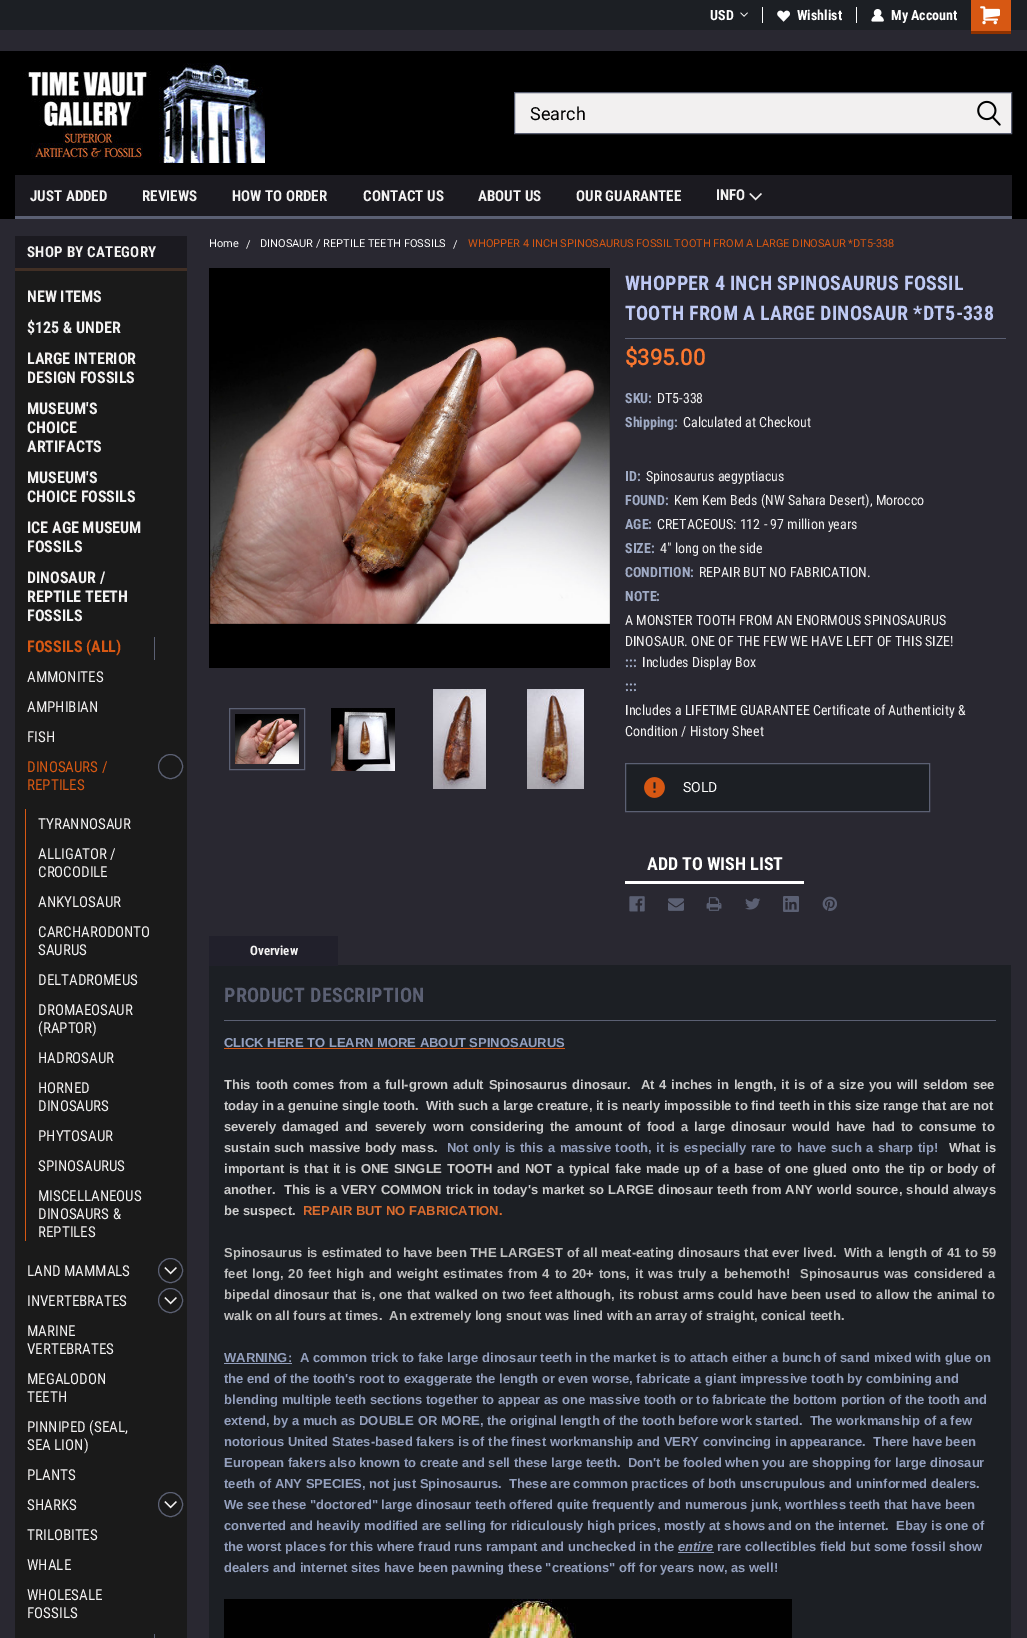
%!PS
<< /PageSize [1027 1638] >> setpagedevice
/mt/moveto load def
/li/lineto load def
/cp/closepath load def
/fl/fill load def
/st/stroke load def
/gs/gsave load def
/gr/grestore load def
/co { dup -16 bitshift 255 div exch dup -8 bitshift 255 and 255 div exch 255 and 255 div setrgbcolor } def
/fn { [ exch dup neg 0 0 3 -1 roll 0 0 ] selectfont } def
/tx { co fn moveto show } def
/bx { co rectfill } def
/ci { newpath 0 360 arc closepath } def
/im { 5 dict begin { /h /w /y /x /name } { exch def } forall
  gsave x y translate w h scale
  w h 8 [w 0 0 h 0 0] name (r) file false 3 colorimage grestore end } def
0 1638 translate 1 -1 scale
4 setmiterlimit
0 0 1027 1638 16#292831 bx
0 51 1027 168 16#000000 bx
0 0 1027 30 16#1C1F24 bx
762 7 1 16 16#FFFFFF bx
(media/1.raw) 740 12 8 5 im
856 7 1 16 16#FFFFFF bx
(media/2.raw) 777 10 13 12 im
(media/3.raw) 871 9 13 13 im
971 0 40 31 16#D75813 bx
971 31 40 3 16#8F3200 bx
(media/4.raw) 980 6 20 19 im
(media/5.raw) 23 63 242 100 im
16#F2F0F0 co
514.5 92.5 mt 1011.5 92.5 li 1011.5 133.5 li 514.5 133.5 li cp gs fl gr
16#5B6073 co
st
(media/6.raw) 977 100 24 26 im
15 175 997 41 16#1B1A20 bx
15 216 997 3 16#5B6073 bx
(media/7.raw) 749 193 13 8 im
15 236 172 32 16#1B1A20 bx
15 268 176 3 16#412F25 bx
15 271 172 1367 16#1A1A1A bx
154 637 1 23 16#5B6073 bx
170.5 766.5 12 ci st
25 809 1 432 16#D75813 bx
16#5B6073 co
170.5 1270.5 12 ci st
(media/8.raw) 164 1267 13 8 im
170.5 1300.5 12 ci st
(media/8.raw) 164 1297 13 8 im
170.5 1504.5 12 ci st
(media/8.raw) 164 1501 13 8 im
154 1634 1 4 16#5B6073 bx
187 268 4 3 16#292831 bx
209 268 401 400 16#000000 bx
(media/9.raw) 209 320 401 304 im
16#5B6073 co
229.5 708.5 75 61 rectstroke
(media/10.raw) 235 714 64 50 im
(media/11.raw) 331 708 64 63 im
(media/12.raw) 433 689 53 100 im
(media/13.raw) 527 689 57 100 im
625 338 381 1 16#5B6073 bx
16#1C1F24 co
625.5 763.5 mt 929.5 763.5 li 929.5 811.5 li 625.5 811.5 li cp gs fl gr
16#5B6073 co
st
(media/14.raw) 644 777 21 21 im
625 881 179 3 16#FFFFFF bx
(media/15.raw) 629 896 16 16 im
(media/16.raw) 668 898 16 13 im
(media/17.raw) 706 897 16 14 im
(media/18.raw) 745 898 16 12 im
(media/19.raw) 783 896 16 16 im
(media/20.raw) 822 896 15 15 im
209 965 802 673 16#1C1F24 bx
209 936 129 30 16#21202B bx
224 1020 772 1 16#5B6073 bx
224 1048 341 1 16#D75813 bx
224 1363 68 1 16#94A0BE bx
678 1552 36 1 16#94A0BE bx
(media/21.raw) 224 1599 568 39 im
(USD) 710 20 /RobotoCondensed-Bold 14 16#FFFFFF tx
(Wishlist) 797 20 /RobotoCondensed-Bold 14 16#FFFFFF tx
(My Account) 891 20 /RobotoCondensed-Bold 14 16#FFFFFF tx
(Search) 530 120 /Roboto-Regular 18 16#000000 tx
(JUST ADDED) 30 201 /RobotoCondensed-Bold 15 16#F3F2F2 tx
(REVIEWS) 142 201 /RobotoCondensed-Bold 15 16#F3F2F2 tx
(HOW TO ORDER) 232 201 /RobotoCondensed-Bold 15 16#F3F2F2 tx
(CONTACT US) 363 201 /RobotoCondensed-Bold 15 16#F3F2F2 tx
(ABOUT US) 478 201 /RobotoCondensed-Bold 15 16#F3F2F2 tx
(OUR GUARANTEE) 576 201 /RobotoCondensed-Bold 15 16#F3F2F2 tx
(INFO) 716 200 /RobotoCondensed-Bold 15 16#F3F2F2 tx
27 257 mt .25 0 (SHOP BY CATEGORY) ashow
(NEW ITEMS) 27 302 /RobotoCondensed-Bold 16 16#F3F2F2 tx
($125 & UNDER) 27 333 /RobotoCondensed-Bold 16 16#F3F2F2 tx
(LARGE INTERIOR) 27 364 /RobotoCondensed-Bold 16 16#F3F2F2 tx
(DESIGN FOSSILS) 27 383 /RobotoCondensed-Bold 16 16#F3F2F2 tx
(MUSEUM'S) 27 414 /RobotoCondensed-Bold 16 16#F3F2F2 tx
(CHOICE) 27 433 /RobotoCondensed-Bold 16 16#F3F2F2 tx
(ARTIFACTS) 27 452 /RobotoCondensed-Bold 16 16#F3F2F2 tx
(MUSEUM'S) 27 483 /RobotoCondensed-Bold 16 16#F3F2F2 tx
(CHOICE FOSSILS) 27 502 /RobotoCondensed-Bold 16 16#F3F2F2 tx
(ICE AGE MUSEUM) 27 533 /RobotoCondensed-Bold 16 16#F3F2F2 tx
(FOSSILS) 27 552 /RobotoCondensed-Bold 16 16#F3F2F2 tx
(DINOSAUR /) 27 583 /RobotoCondensed-Bold 16 16#F3F2F2 tx
(REPTILE TEETH) 27 602 /RobotoCondensed-Bold 16 16#F3F2F2 tx
(FOSSILS) 27 621 /RobotoCondensed-Bold 16 16#F3F2F2 tx
(FOSSILS \(ALL\)) 27 652 /RobotoCondensed-Bold 16 16#D75813 tx
(AMMONITES) 27 682 /RobotoCondensed-Regular 15 16#F3F2F2 tx
(AMPHIBIAN) 27 712 /RobotoCondensed-Regular 15 16#F3F2F2 tx
(FISH) 27 742 /RobotoCondensed-Regular 15 16#F3F2F2 tx
(DINOSAURS /) 27 772 /RobotoCondensed-Regular 15 16#D75813 tx
(REPTILES) 27 790 /RobotoCondensed-Regular 15 16#D75813 tx
(TYRANNOSAUR) 38 829 /RobotoCondensed-Regular 15 16#F3F2F2 tx
(ALLIGATOR /) 38 859 /RobotoCondensed-Regular 15 16#F3F2F2 tx
(CROCODILE) 38 877 /RobotoCondensed-Regular 15 16#F3F2F2 tx
(ANKYLOSAUR) 38 907 /RobotoCondensed-Regular 15 16#F3F2F2 tx
(CARCHARODONTO) 38 937 /RobotoCondensed-Regular 15 16#F3F2F2 tx
(SAURUS) 38 955 /RobotoCondensed-Regular 15 16#F3F2F2 tx
(DELTADROMEUS) 38 985 /RobotoCondensed-Regular 15 16#F3F2F2 tx
(DROMAEOSAUR) 38 1015 /RobotoCondensed-Regular 15 16#F3F2F2 tx
(\(RAPTOR\)) 38 1033 /RobotoCondensed-Regular 15 16#F3F2F2 tx
(HADROSAUR) 38 1063 /RobotoCondensed-Regular 15 16#F3F2F2 tx
(HORNED) 38 1093 /RobotoCondensed-Regular 15 16#F3F2F2 tx
(DINOSAURS) 38 1111 /RobotoCondensed-Regular 15 16#F3F2F2 tx
(PHYTOSAUR) 38 1141 /RobotoCondensed-Regular 15 16#F3F2F2 tx
(SPINOSAURUS) 38 1171 /RobotoCondensed-Regular 15 16#F3F2F2 tx
(MISCELLANEOUS) 38 1201 /RobotoCondensed-Regular 15 16#F3F2F2 tx
(DINOSAURS &) 38 1219 /RobotoCondensed-Regular 15 16#F3F2F2 tx
(REPTILES) 38 1237 /RobotoCondensed-Regular 15 16#F3F2F2 tx
(LAND MAMMALS) 27 1276 /RobotoCondensed-Regular 15 16#F3F2F2 tx
(INVERTEBRATES) 27 1306 /RobotoCondensed-Regular 15 16#F3F2F2 tx
(MARINE) 27 1336 /RobotoCondensed-Regular 15 16#F3F2F2 tx
(VERTEBRATES) 27 1354 /RobotoCondensed-Regular 15 16#F3F2F2 tx
(MEGALODON) 27 1384 /RobotoCondensed-Regular 15 16#F3F2F2 tx
(TEETH) 27 1402 /RobotoCondensed-Regular 15 16#F3F2F2 tx
(PINNIPED \(SEAL,) 27 1432 /RobotoCondensed-Regular 15 16#F3F2F2 tx
(SEA LION\)) 27 1450 /RobotoCondensed-Regular 15 16#F3F2F2 tx
(PLANTS) 27 1480 /RobotoCondensed-Regular 15 16#F3F2F2 tx
(SHARKS) 27 1510 /RobotoCondensed-Regular 15 16#F3F2F2 tx
(TRILOBITES) 27 1540 /RobotoCondensed-Regular 15 16#F3F2F2 tx
(WHALE) 27 1570 /RobotoCondensed-Regular 15 16#F3F2F2 tx
(WHOLESALE) 27 1600 /RobotoCondensed-Regular 15 16#F3F2F2 tx
(FOSSILS) 27 1618 /RobotoCondensed-Regular 15 16#F3F2F2 tx
(Home) 209 247 /Roboto-Regular 11 16#FFFFFF tx
(/) 246 248 /Roboto-Regular 11 16#FFFFFF tx
(DINOSAUR / REPTILE TEETH FOSSILS) 260 247 /Roboto-Regular 11 16#FFFFFF tx
(/) 453 248 /Roboto-Regular 11 16#FFFFFF tx
(WHOPPER 4 INCH SPINOSAURUS FOSSIL TOOTH FROM A LARGE DINOSAUR *DT5-338) 468 247 /Roboto-Regular 11 16#D75813 tx
/RobotoCondensed-Bold 20 fn
16#BFCAF4 co
625 290 mt .25 0 (WHOPPER 4 INCH SPINOSAURUS FOSSIL) ashow
625 320 mt .25 0 (TOOTH FROM A LARGE DINOSAUR *DT5-338) ashow
($395.00) 625 365 /Roboto-Bold 22 16#FA772F tx
(SKU:) 625 403 /RobotoCondensed-Bold 14 16#A0ABC5 tx
(DT5-338) 657 403 /RobotoCondensed-Regular 14 16#F3F2F2 tx
(Shipping:) 625 427 /RobotoCondensed-Bold 14 16#A0ABC5 tx
(Calculated at Checkout) 683 427 /RobotoCondensed-Regular 14 16#F3F2F2 tx
(ID:) 625 481 /RobotoCondensed-Bold 14 16#A0ABC5 tx
(Spinosaurus aegyptiacus) 646 481 /RobotoCondensed-Regular 14 16#F3F2F2 tx
(FOUND:) 625 505 /RobotoCondensed-Bold 14 16#A0ABC5 tx
(Kem Kem Beds \(NW Sahara Desert\), Morocco) 674 505 /RobotoCondensed-Regular 14 16#F3F2F2 tx
(AGE:) 625 529 /RobotoCondensed-Bold 14 16#A0ABC5 tx
(CRETACEOUS: 112 - 97 million years) 657 529 /RobotoCondensed-Regular 14 16#F3F2F2 tx
(SIZE:) 625 553 /RobotoCondensed-Bold 14 16#A0ABC5 tx
(4" long on the side) 660 553 /RobotoCondensed-Regular 14 16#F3F2F2 tx
(CONDITION:) 625 577 /RobotoCondensed-Bold 14 16#A0ABC5 tx
(REPAIR BUT NO FABRICATION.) 699 577 /RobotoCondensed-Regular 14 16#F3F2F2 tx
(NOTE:) 625 601 /RobotoCondensed-Bold 14 16#A0ABC5 tx
(A MONSTER TOOTH FROM AN ENORMOUS SPINOSAURUS) 625 625 /RobotoCondensed-Regular 14 16#F3F2F2 tx
(DINOSAUR. ONE OF THE FEW WE HAVE LEFT OF THIS SIZE!) 625 646 /RobotoCondensed-Regular 14 16#F3F2F2 tx
(:::) 625 667 /RobotoCondensed-Bold 14 16#A0ABC5 tx
(Includes Display Box) 642 667 /RobotoCondensed-Regular 14 16#F3F2F2 tx
(:::) 625 691 /RobotoCondensed-Bold 14 16#A0ABC5 tx
(Includes a LIFETIME GUARANTEE Certificate of Authenticity &) 625 715 /RobotoCondensed-Regular 14 16#F3F2F2 tx
(Condition / History Sheet) 625 736 /RobotoCondensed-Regular 14 16#F3F2F2 tx
(SOLD) 683 792 /Roboto-Regular 14 16#FFFFFF tx
(ADD TO WISH LIST) 647 870 /RobotoCondensed-Bold 18 16#FFFFFF tx
(Overview) 250 955 /RobotoCondensed-Bold 13 16#F3F2F2 tx
/RobotoCondensed-Bold 20 fn
16#5B6073 co
224 1002 mt .25 0 (PRODUCT DESCRIPTION) ashow
(CLICK HERE TO LEARN MORE ABOUT SPINOSAURUS) 224 1047 /LiberationSans-Bold 13 16#94A0BE tx
16#CCCCCC co
224 1089 mt 1.3 0 32 (This tooth comes from a full-grown adult Spinosaurus dinosaur.  At 4 inches in length, it is of a size you will seldom see) widthshow
(today in a genuine single tooth.  With such a large creature, it is nearly impossible to find teeth in this size range that are not) 224 1110 /LiberationSans-Bold 13 16#CCCCCC tx
224 1131 mt 2.5 0 32 (severely damaged and severely worn considering the amount of food a large dinosaur would have had to consume to) widthshow
224 1152 mt 1 0 32 (sustain such massive body mass.) widthshow
16#94A0BE co
447 1152 mt 1 0 32 (Not only is this a massive tooth, it is especially rare to have such a sharp tip!) widthshow
16#CCCCCC co
949 1152 mt 1 0 32 (What is) widthshow
224 1173 mt 1.1 0 32 (important is that it is ONE SINGLE TOOTH and NOT a typical fake made up of a base of one glued onto the tip or body of) widthshow
224 1194 mt .6 0 32 (another.  This is a VERY COMMON trick in today's market so LARGE dinosaur teeth from ANY world source, should always) widthshow
(be suspect.) 224 1215 /LiberationSans-Bold 13 16#CCCCCC tx
(REPAIR BUT NO FABRICATION.) 303 1215 /LiberationSans-Bold 13 16#DB6C2F tx
16#C0C0C0 co
224 1257 mt .4 0 32 (Spinosaurus is estimated to have been THE LARGEST of all meat-eating dinosaurs that ever lived.  With a length of 41 to 59) widthshow
224 1278 mt 1.5 0 32 (feet long, 20 feet high and weight estimates from 4 to 20+ tons, it was truly a behemoth!  Spinosaurus was considered a) widthshow
224 1299 mt .6 0 32 (bipedal dinosaur that is, one that walked on two feet although, its robust arms could have been used to allow the animal to) widthshow
(walk on all fours at times.  An extremely long snout was lined with an array of straight, conical teeth.) 224 1320 /LiberationSans-Bold 13 16#C0C0C0 tx
(WARNING:) 224 1362 /LiberationSans-Bold 13 16#94A0BE tx
(A common trick to fake large dinosaur teeth in the market is to attach either a bunch of sand mixed with glue on) 300 1362 /LiberationSans-Bold 13 16#94A0BE tx
(the end of the tooth's root to exaggerate the length or even worse, fabricate a giant impressive tooth by combining and) 224 1383 /LiberationSans-Bold 13 16#94A0BE tx
(blending multiple teeth sections together to appear as one massive tooth or to fabricate the bottom portion of the tooth and) 224 1404 /LiberationSans-Bold 13 16#94A0BE tx
(extend, by a much as DOUBLE OR MORE, the original length of the tooth before work started.  The workmanship of a few) 224 1425 /LiberationSans-Bold 13 16#94A0BE tx
(notorious United States-based fakers is of the finest workmanship and VERY convincing in appearance.  There have been) 224 1446 /LiberationSans-Bold 13 16#94A0BE tx
(European fakers also known to create and sell these large teeth.  Don't be fooled when you are shopping for large dinosaur) 224 1467 /LiberationSans-Bold 13 16#94A0BE tx
(teeth of ANY SPECIES, not just Spinosaurus.  These are common practices of both unscrupulous and uninformed dealers.) 224 1488 /LiberationSans-Bold 13 16#94A0BE tx
(We see these "doctored" large dinosaur teeth offered quite frequently and numerous junk, worthless teeth that have been) 224 1509 /LiberationSans-Bold 13 16#94A0BE tx
(converted and heavily modified are selling for ridiculously high prices, mostly at shows and on the internet.  Ebay is one of) 224 1530 /LiberationSans-Bold 13 16#94A0BE tx
(the worst places for this where fraud runs rampant and unchecked in the) 224 1551 /LiberationSans-Bold 13 16#94A0BE tx
(entire) 678 1551 /LiberationSans-BoldItalic 13 16#94A0BE tx
(rare collectibles field but some fossil show) 717 1551 /LiberationSans-Bold 13 16#94A0BE tx
(dealers and internet sites have been pawning these "creations" off for years now, as well!) 224 1572 /LiberationSans-Bold 13 16#94A0BE tx
showpage
